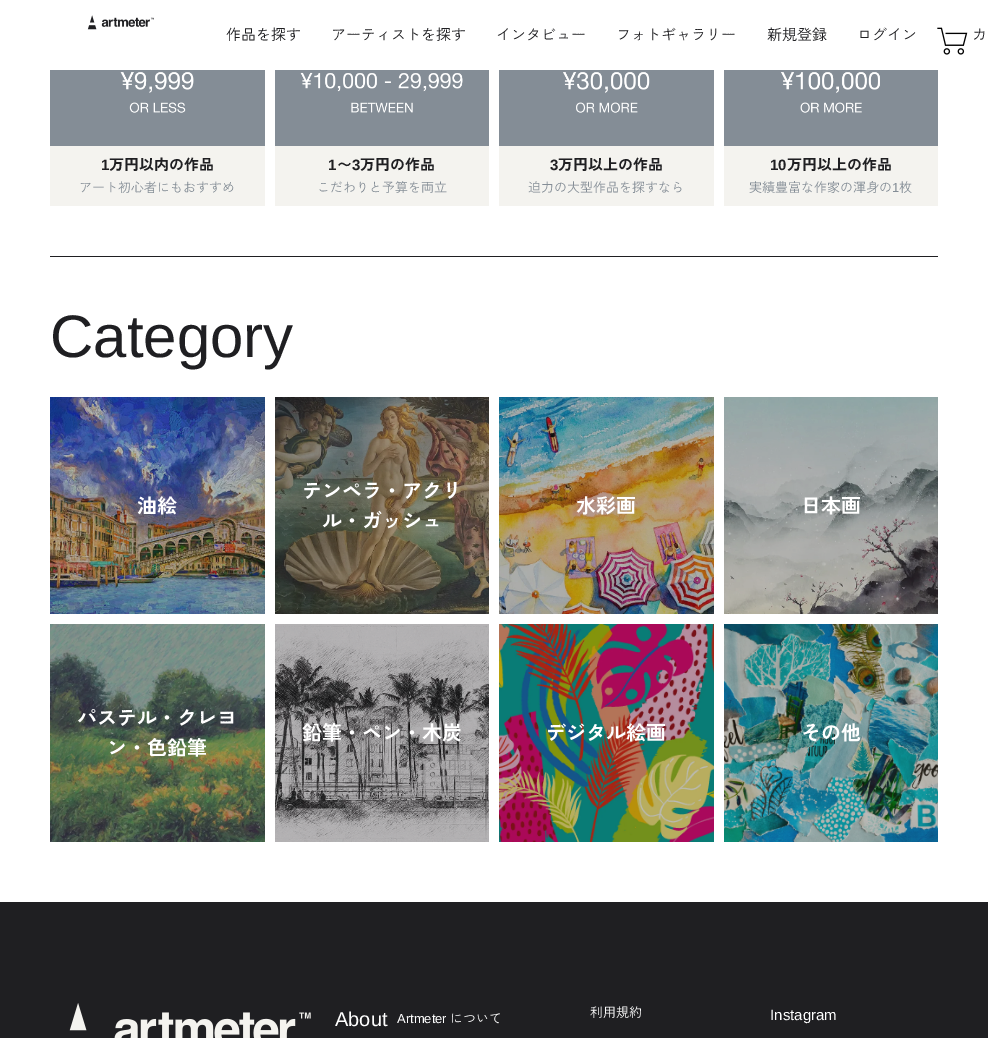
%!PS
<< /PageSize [988 1038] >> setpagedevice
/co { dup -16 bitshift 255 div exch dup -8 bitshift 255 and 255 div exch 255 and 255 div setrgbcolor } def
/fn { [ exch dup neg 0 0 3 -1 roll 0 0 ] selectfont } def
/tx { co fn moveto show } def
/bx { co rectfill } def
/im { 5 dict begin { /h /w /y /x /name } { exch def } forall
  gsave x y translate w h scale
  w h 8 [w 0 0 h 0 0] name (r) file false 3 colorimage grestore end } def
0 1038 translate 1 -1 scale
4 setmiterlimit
0 0 988 1038 16#FFFFFF bx
(media/1.raw) 87 15 67 15 im
(media/2.raw) 937 27 31 28 im
50 146 215 60 16#F4F3EF bx
(media/3.raw) 50 70 215 76 im
275 146 214 60 16#F4F3EF bx
(media/4.raw) 275 70 214 76 im
499 146 215 60 16#F4F3EF bx
(media/5.raw) 499 70 215 76 im
724 146 214 60 16#F4F3EF bx
(media/6.raw) 724 70 214 76 im
50 256 888 1 16#1F1F22 bx
(media/7.raw) 50 397 215 217 im
(media/8.raw) 275 397 214 217 im
(media/9.raw) 499 397 215 217 im
(media/10.raw) 724 397 214 217 im
(media/11.raw) 50 624 215 218 im
(media/12.raw) 275 624 214 218 im
(media/13.raw) 499 624 215 218 im
(media/14.raw) 724 624 214 218 im
0 902 988 136 16#1F1F22 bx
(media/15.raw) 69 1003 242 35 im
(作品を探す) 226 40 /ZenKakuGothicNew-Regular 15 16#1F1F22 tx
(アーティストを探す) 331 40 /ZenKakuGothicNew-Regular 15 16#1F1F22 tx
(インタビュー) 496 40 /ZenKakuGothicNew-Regular 15 16#1F1F22 tx
(フォトギャラリー) 616 40 /ZenKakuGothicNew-Regular 15 16#1F1F22 tx
(新規登録) 767 40 /ZenKakuGothicNew-Regular 15 16#1F1F22 tx
(ログイン) 857 40 /ZenKakuGothicNew-Regular 15 16#1F1F22 tx
(カ) 972 40 /ZenKakuGothicNew-Regular 15 16#1F1F22 tx
(1) 101 170 /LiberationSans-Bold 15 16#1F1F22 tx
(万円以内の作品) 109 170 /ZenKakuGothicNew-Bold 15 16#1F1F22 tx
(アート初心者にもおすすめ) 79 192 /ZenKakuGothicNew-Regular 13 16#848D96 tx
(1) 328 170 /LiberationSans-Bold 15 16#1F1F22 tx
(〜) 337 170 /ZenKakuGothicNew-Bold 15 16#1F1F22 tx
(3) 352 170 /LiberationSans-Bold 15 16#1F1F22 tx
(万円の作品) 360 170 /ZenKakuGothicNew-Bold 15 16#1F1F22 tx
(こだわりと予算を両立) 317 192 /ZenKakuGothicNew-Regular 13 16#848D96 tx
(3) 550 170 /LiberationSans-Bold 15 16#1F1F22 tx
(万円以上の作品) 558 170 /ZenKakuGothicNew-Bold 15 16#1F1F22 tx
(迫力の大型作品を探すなら) 528 192 /ZenKakuGothicNew-Regular 13 16#848D96 tx
(10) 770 170 /LiberationSans-Bold 15 16#1F1F22 tx
(万円以上の作品) 787 170 /ZenKakuGothicNew-Bold 15 16#1F1F22 tx
(実績豊富な作家の渾身の) 749 192 /ZenKakuGothicNew-Regular 13 16#848D96 tx
(1) 892 192 /LiberationSans-Regular 13 16#848D96 tx
(枚) 899 192 /ZenKakuGothicNew-Regular 13 16#848D96 tx
(Category) 50 357 /LiberationSans-Regular 60 16#1F1F22 tx
(油絵) 137 513 /ZenKakuGothicNew-Bold 20 16#FFFFFF tx
(テンペラ・アクリ) 302 498 /ZenKakuGothicNew-Bold 20 16#FFFFFF tx
(ル・ガッシュ) 322 528 /ZenKakuGothicNew-Bold 20 16#FFFFFF tx
(水彩画) 576 513 /ZenKakuGothicNew-Bold 20 16#FFFFFF tx
(日本画) 801 513 /ZenKakuGothicNew-Bold 20 16#FFFFFF tx
(パステル・クレヨ) 77 725 /ZenKakuGothicNew-Bold 20 16#FFFFFF tx
(ン・色鉛筆) 107 755 /ZenKakuGothicNew-Bold 20 16#FFFFFF tx
(鉛筆・ペン・木炭) 302 740 /ZenKakuGothicNew-Bold 20 16#FFFFFF tx
(デジタル絵画) 546 740 /ZenKakuGothicNew-Bold 20 16#FFFFFF tx
(その他) 801 740 /ZenKakuGothicNew-Bold 20 16#FFFFFF tx
(About) 335 1026 /LiberationSans-Regular 20 16#FFFFFF tx
(Artmeter) 397 1023 /LiberationSans-Regular 13 16#FFFFFF tx
(について) 450 1023 /ZenKakuGothicNew-Regular 13 16#FFFFFF tx
(利用規約) 590 1017 /ZenKakuGothicNew-Regular 13 16#FFFFFF tx
(Instagram) 770 1020 /LiberationSans-Regular 15 16#FFFFFF tx
showpage
